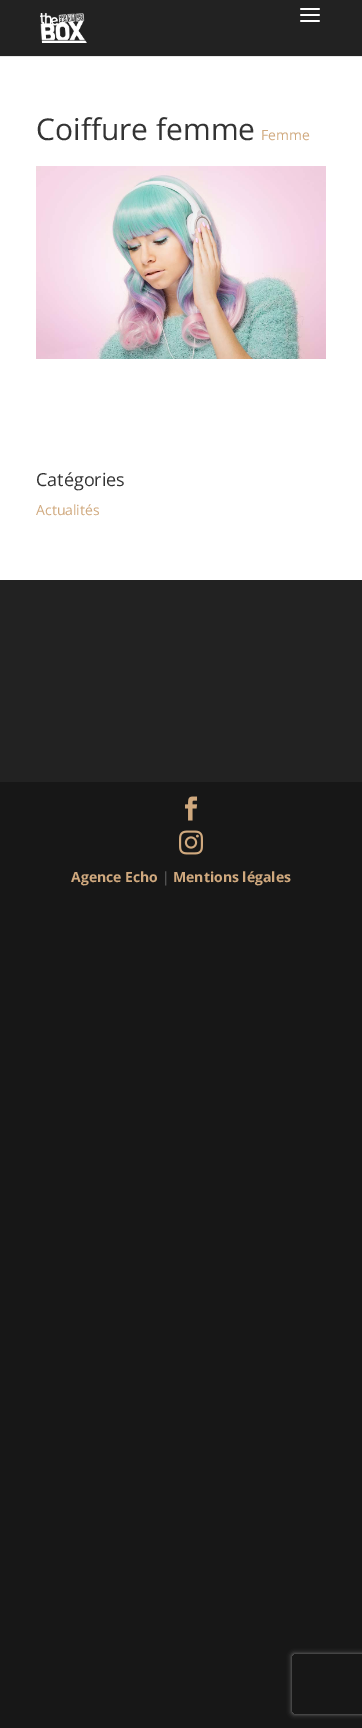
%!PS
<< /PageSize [362 1728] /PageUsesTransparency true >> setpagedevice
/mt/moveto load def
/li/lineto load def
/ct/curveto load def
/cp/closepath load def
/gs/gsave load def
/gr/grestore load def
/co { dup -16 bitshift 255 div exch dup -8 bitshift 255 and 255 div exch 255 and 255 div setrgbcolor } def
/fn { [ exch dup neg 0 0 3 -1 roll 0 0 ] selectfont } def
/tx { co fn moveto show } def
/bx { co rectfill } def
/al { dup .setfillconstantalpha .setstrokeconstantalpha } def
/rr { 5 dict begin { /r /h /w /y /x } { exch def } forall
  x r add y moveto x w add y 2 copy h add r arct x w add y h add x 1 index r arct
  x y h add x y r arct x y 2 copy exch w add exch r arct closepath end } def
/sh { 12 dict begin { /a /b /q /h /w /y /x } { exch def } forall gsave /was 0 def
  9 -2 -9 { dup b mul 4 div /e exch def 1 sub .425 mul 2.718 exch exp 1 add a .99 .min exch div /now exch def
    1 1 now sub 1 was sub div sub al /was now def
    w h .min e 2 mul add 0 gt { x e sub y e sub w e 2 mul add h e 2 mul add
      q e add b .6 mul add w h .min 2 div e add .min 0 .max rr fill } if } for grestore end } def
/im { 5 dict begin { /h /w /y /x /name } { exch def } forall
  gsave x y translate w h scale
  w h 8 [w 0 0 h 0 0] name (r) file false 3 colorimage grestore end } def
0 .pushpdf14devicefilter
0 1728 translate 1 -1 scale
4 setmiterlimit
0 0 362 1728 16#171717 bx
0 56 362 1 16#E6E6E6 bx
0 0 362 56 16#222222 bx
(media/1.raw) 40 13 47 30 im
(media/2.raw) 300 8 20 14 im
0 57 362 523 16#FFFFFF bx
(media/3.raw) 36 166 290 193 im
0 580 362 202 16#222222 bx
(media/4.raw) 185 796 13 25 im
(media/5.raw) 179 830 24 25 im
gs
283 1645 mt 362 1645 li 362 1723 li 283 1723 li cp 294 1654 mt 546 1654 li 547 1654 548 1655 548 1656 ct 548 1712 li 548 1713 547 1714 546 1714 ct 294 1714 li 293 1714 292 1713 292 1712 ct 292 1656 li 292 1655 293 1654 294 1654 ct cp eoclip newpath
16#808080 co
292 1654 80 60 2 2.5 1 sh
gr
(Coiffure femme) 36 140 /OpenSans-Regular 30 16#333333 tx
(Femme) 261 140 /OpenSans-Regular 14 16#D0A97E tx
(Catégories) 36 486 /OpenSans-Regular 18 16#333333 tx
(Actualités) 36 515 /OpenSans-Regular 14 16#D0A97E tx
(Agence Echo) 71 882 /OpenSans-Bold 14 16#D0A97E tx
(|) 162 882 /OpenSans-Regular 14 16#666666 tx
(Mentions légales) 173 882 /OpenSans-Bold 14 16#D0A97E tx
.poppdf14devicefilter showpage
